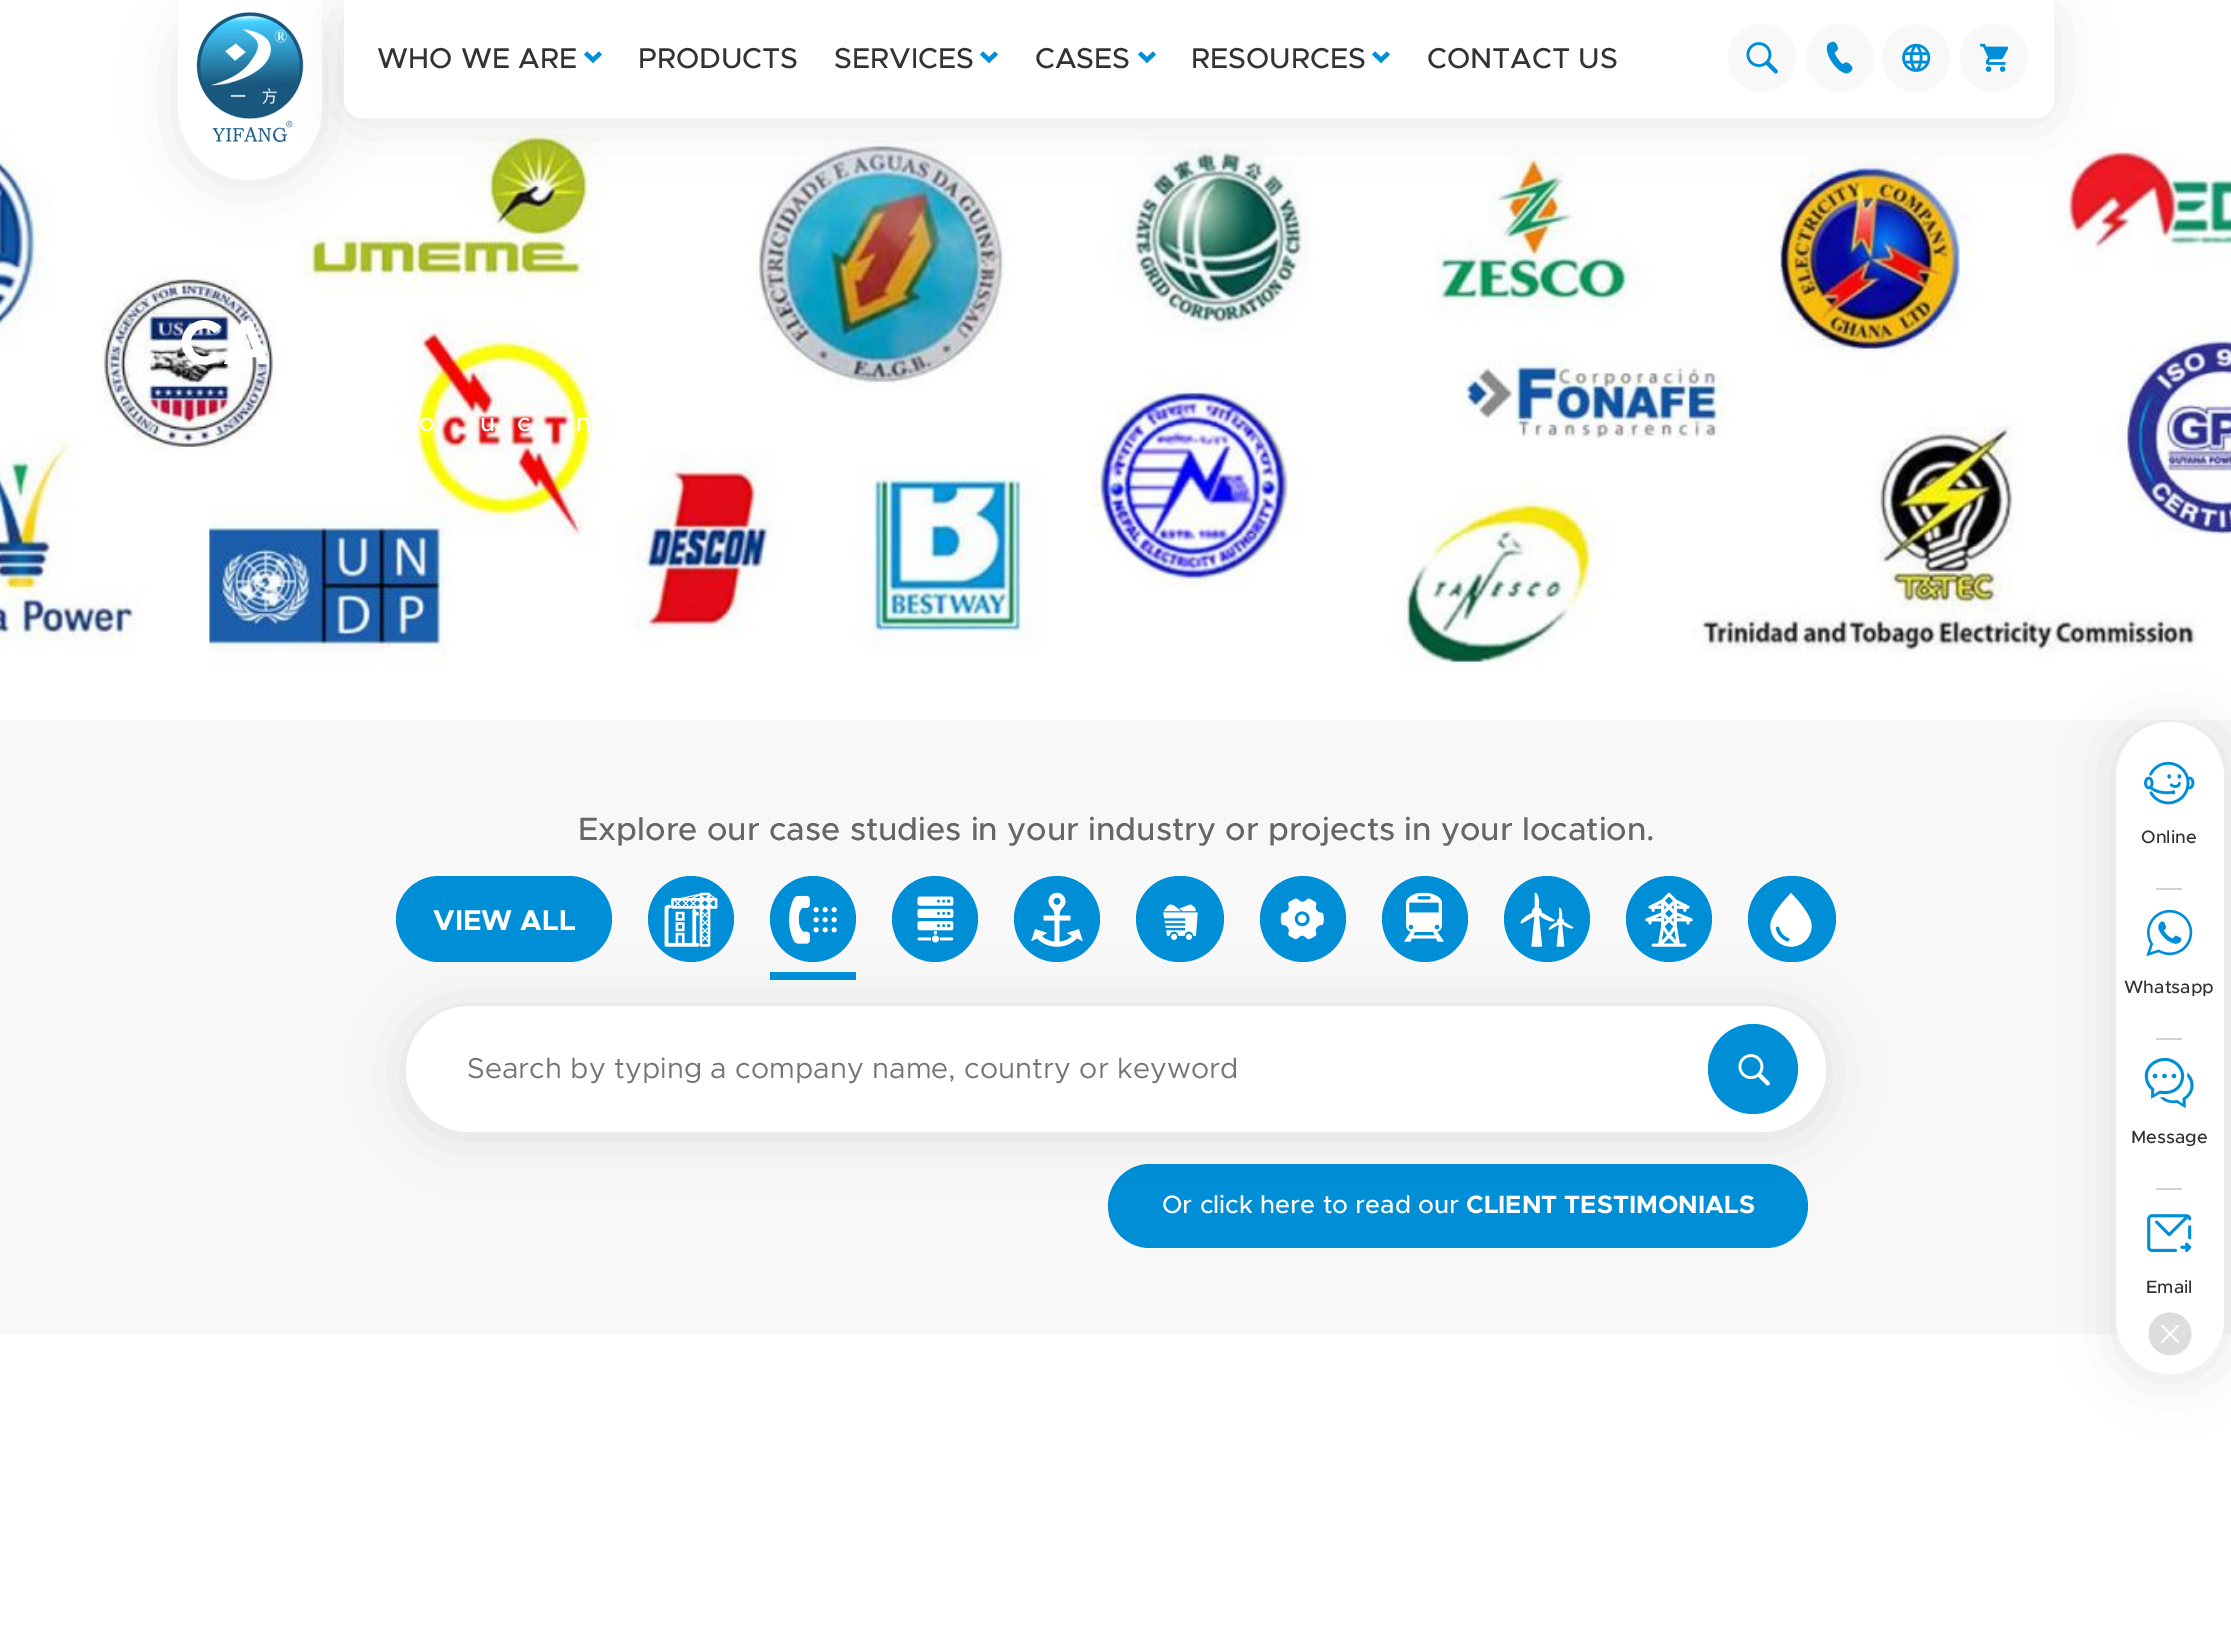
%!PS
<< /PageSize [2231 1626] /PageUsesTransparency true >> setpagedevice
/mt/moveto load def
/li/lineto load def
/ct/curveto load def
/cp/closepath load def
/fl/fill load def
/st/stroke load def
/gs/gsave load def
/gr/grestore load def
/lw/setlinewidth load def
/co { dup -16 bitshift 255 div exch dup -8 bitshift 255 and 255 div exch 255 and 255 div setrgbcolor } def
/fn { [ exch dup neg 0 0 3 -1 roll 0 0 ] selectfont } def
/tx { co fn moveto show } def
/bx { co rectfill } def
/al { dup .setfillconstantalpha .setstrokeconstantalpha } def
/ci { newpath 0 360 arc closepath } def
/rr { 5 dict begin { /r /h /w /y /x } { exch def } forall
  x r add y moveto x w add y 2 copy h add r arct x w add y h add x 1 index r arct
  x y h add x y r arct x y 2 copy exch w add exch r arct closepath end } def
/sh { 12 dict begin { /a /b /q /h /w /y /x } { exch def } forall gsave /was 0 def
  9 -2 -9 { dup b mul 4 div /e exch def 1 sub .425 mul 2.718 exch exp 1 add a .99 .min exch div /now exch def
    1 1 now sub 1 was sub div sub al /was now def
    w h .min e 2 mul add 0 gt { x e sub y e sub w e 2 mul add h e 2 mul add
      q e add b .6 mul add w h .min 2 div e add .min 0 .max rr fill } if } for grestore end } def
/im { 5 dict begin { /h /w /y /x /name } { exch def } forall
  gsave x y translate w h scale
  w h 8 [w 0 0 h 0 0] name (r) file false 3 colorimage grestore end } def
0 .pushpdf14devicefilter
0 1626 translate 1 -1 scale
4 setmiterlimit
0 0 2231 1626 16#FFFFFF bx
(media/6.raw) 0 127 2231 540 im
16#000000 co
178 4 144 180 72 27 .1 sh
16#FFFFFF co
178 0 mt 322 0 li 322 108 li 322 148 290 180 250 180 ct 210 180 178 148 178 108 ct cp fl
(media/1.raw) 196 12 108 130 im
16#000000 co
344 4 1710 118 18 27 .1 sh
16#FFFFFF co
344 0 mt 2054 0 li 2054 100 li 2054 110 2046 118 2036 118 ct 362 118 li 352 118 344 110 344 100 ct cp fl
16#008FD7 co
584 54.5 mt 587 51.5 li 593 57 li 599 51.5 li 602 54.5 li 593 63 li cp fl
980 54.5 mt 983 51.5 li 989 57 li 995 51.5 li 998 54.5 li 989 63 li cp fl
1138 54.5 mt 1141 51.5 li 1147 57 li 1153 51.5 li 1156 54.5 li 1147 63 li cp fl
1372 54.5 mt 1375 51.5 li 1381 57 li 1387 51.5 li 1390 54.5 li 1381 63 li cp fl
16#F8F8F8 co
1762 58 34 ci fl
(media/2.raw) 1746 42 32 32 im
1840 58 34 ci fl
(media/3.raw) 1826 41 27 33 im
1916 58 34 ci fl
(media/4.raw) 1902 43 29 29 im
1994 58 34 ci fl
(media/5.raw) 1980 43 29 29 im
0 720 2231 614 16#F8F8F8 bx
16#008FD7 co
396 876 216 86 43 rr fl
1108 1164 700 84 42 rr fl
16#000000 co
406 1010 1420 126 63 27 .1 sh
16#008FD7 co
691 919 43 ci fl
(media/7.raw) 664 892 54 55 im
813 919 43 ci fl
(media/8.raw) 789 895 48 49 im
770 972 86 8 16#008FD7 bx
935 919 43 ci fl
(media/9.raw) 917 896 37 47 im
1057 919 43 ci fl
(media/10.raw) 1031 892 52 55 im
1136 876 88 86 43 rr fl
(media/11.raw) 1163 904 35 36 im
1303 919 43 ci fl
(media/12.raw) 1280 898 44 42 im
1425 919 43 ci fl
(media/13.raw) 1404 892 41 50 im
1547 919 43 ci fl
(media/14.raw) 1520 892 54 55 im
1669 919 43 ci fl
(media/15.raw) 1645 892 48 55 im
1748 876 88 86 43 rr fl
(media/16.raw) 1770 892 42 55 im
16#FFFFFF co
415 1015 1402 108 54 rr gs fl gr
18 lw
st
16#008FD7 co
1753 1069 45 ci fl
(media/17.raw) 1738 1054 32 32 im
16#000000 co
2116 726 108 652 54 27 .1 sh
16#FFFFFF co
2116 722 108 652 54 rr fl
(media/18.raw) 2144 761 51 44 im
2156 888 26 2 16#D1D3D2 bx
(media/19.raw) 2146 909 47 48 im
2156 1038 26 2 16#D1D3D2 bx
(media/20.raw) 2144 1057 50 52 im
2156 1188 26 2 16#D1D3D2 bx
(media/21.raw) 2147 1214 45 38 im
(media/22.raw) 2148 1312 44 44 im
(WHO WE ARE) 377 68 /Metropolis-Medium 28.8 16#333333 tx
(PRODUCTS) 638 68 /Metropolis-Medium 28.8 16#333333 tx
(SERVICES) 834 68 /Metropolis-Medium 28.8 16#333333 tx
(CASES) 1035 68 /Metropolis-Medium 28.8 16#333333 tx
(RESOURCES) 1191 68 /Metropolis-Medium 28.8 16#333333 tx
(CONTACT US) 1427 68 /Metropolis-Medium 28.8 16#333333 tx
(CA) 179 364 /Metropolis-Bold 63 16#FFFFFF tx
(o) 419 431 /Metropolis-Medium 25.25 16#FFFFFF tx
(u) 480 431 /Metropolis-Medium 25.25 16#FFFFFF tx
(c) 517 431 /Metropolis-Medium 25.25 16#FFFFFF tx
(n) 576 431 /Metropolis-Medium 25.25 16#FFFFFF tx
(Explore our case studies in your industry or projects in your location.) 578 840 /Metropolis-Medium 32.4 16#666666 tx
(VIEW ALL) 433 930 /Metropolis-Bold 28.8 16#FFFFFF tx
(Search by typing a company name, country or keyword) 467 1078 /Metropolis-Regular 28.8 16#757575 tx
(Or click here to read our) 1162 1213 /Metropolis-Medium 25.25 16#FFFFFF tx
(CLIENT TESTIMONIALS) 1466 1213 /Metropolis-Bold 25.25 16#FFFFFF tx
(Online) 2141 843 /Metropolis-Medium 18 16#333333 tx
(Whatsapp) 2124 993 /Metropolis-Medium 18 16#333333 tx
(Message) 2131 1143 /Metropolis-Medium 18 16#333333 tx
(Email) 2146 1293 /Metropolis-Medium 18 16#333333 tx
.poppdf14devicefilter showpage
